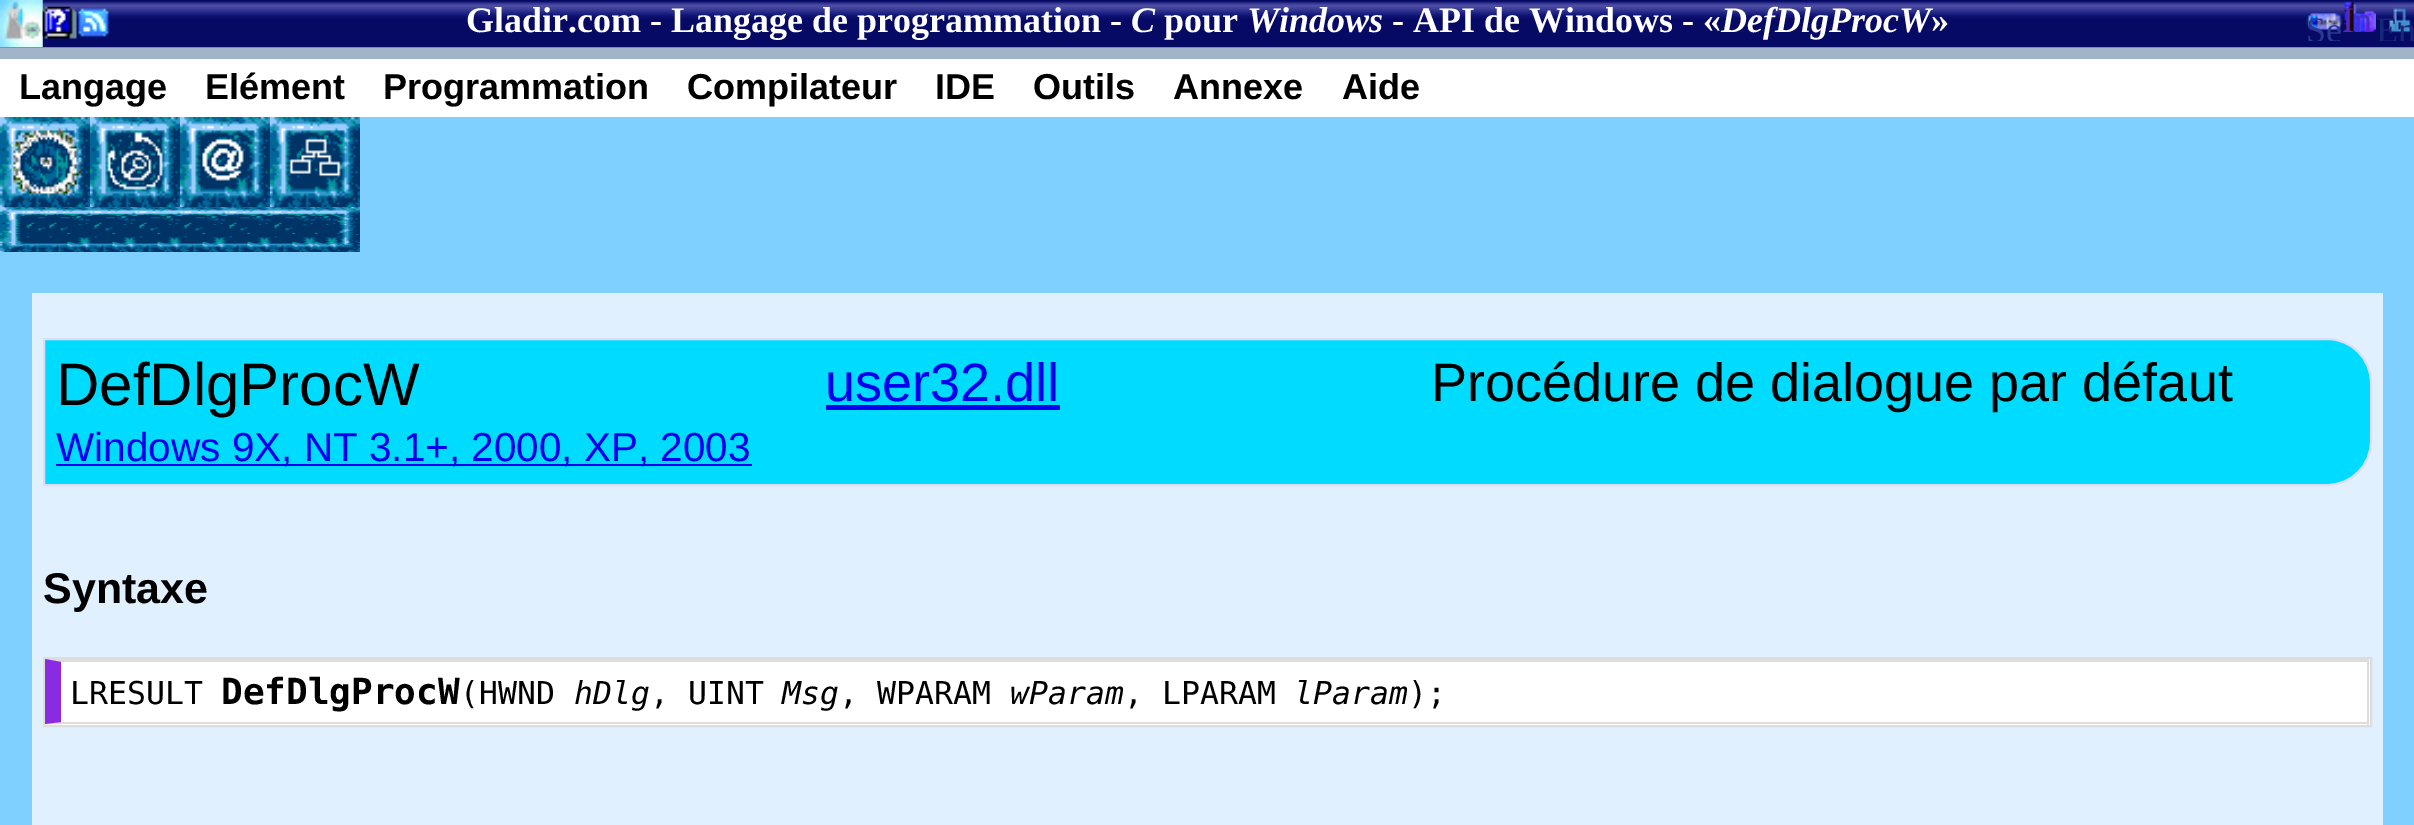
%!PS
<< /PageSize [2414 825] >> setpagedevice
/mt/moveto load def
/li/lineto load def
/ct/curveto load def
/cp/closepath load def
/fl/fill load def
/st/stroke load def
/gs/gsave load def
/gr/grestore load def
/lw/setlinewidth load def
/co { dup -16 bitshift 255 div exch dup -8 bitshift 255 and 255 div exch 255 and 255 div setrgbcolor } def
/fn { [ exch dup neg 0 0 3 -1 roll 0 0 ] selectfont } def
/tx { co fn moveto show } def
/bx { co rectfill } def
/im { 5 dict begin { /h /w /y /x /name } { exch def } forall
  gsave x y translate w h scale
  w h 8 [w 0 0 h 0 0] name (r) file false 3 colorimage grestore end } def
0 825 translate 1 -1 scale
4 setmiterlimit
0 0 2414 825 16#80D0FF bx
0 47 2414 12 16#A1B5CA bx
(media/1.raw) 0 0 2414 48 im
(media/2.raw) 0 0 43 48 im
(media/3.raw) 42 6 35 33 im
(media/4.raw) 78 8 31 29 im
(media/5.raw) 2306 13 37 17 im
(media/6.raw) 2344 1 32 31 im
(media/7.raw) 2389 8 22 25 im
0 59 2414 58 16#FFFFFF bx
(media/8.raw) 0 117 90 90 im
(media/9.raw) 90 117 90 90 im
(media/10.raw) 180 117 90 90 im
(media/11.raw) 270 117 90 90 im
(media/12.raw) 0 207 360 45 im
32 293 2351 532 16#E0F0FF bx
16#00DCFF co
44 339 mt 2327 339 li 2351.5 339 2371 358.5 2371 383 ct 2371 441 li 2371 465.5 2351.5 485 2327 485 ct 44 485 li cp gs fl gr
16#DDDDFB co
2 lw
st
826 405 234 5 16#0000EE bx
56 464 696 2 16#0000EE bx
16#FFFFFF co
44 658 mt 2371 658 li 2371 726 li 44 726 li cp gs fl gr
16#DDDDDD co
st
45 659 mt 2369 659 li 2367 662 li 61 662 li cp fl
2367 659 2 66 16#DDDDDD bx
2369 724 mt 45 724 li 61 722 li 2367 722 li cp fl
16#8A2BE2 co
45 724 mt 45 659 li 61 662 li 61 722 li cp fl
(Gladir.com - Langage de programmation -) 466 32 /LiberationSerif-Bold 36 16#FFFFFF tx
(C) 1131 32 /LiberationSerif-BoldItalic 36 16#FFFFFF tx
(pour) 1164 32 /LiberationSerif-Bold 36 16#FFFFFF tx
(Windows) 1247 32 /LiberationSerif-BoldItalic 36 16#FFFFFF tx
(- API de Windows - «) 1392 32 /LiberationSerif-Bold 36 16#FFFFFF tx
(DefDlgProcW) 1721 32 /LiberationSerif-BoldItalic 36 16#FFFFFF tx
(») 1931 32 /LiberationSerif-Bold 36 16#FFFFFF tx
gs
2306 11 36 30 rectclip
(Se) 2306 42 /LiberationSerif-Regular 36 16#293996 tx
gr
(In) 2342 32 /LiberationSerif-Regular 36 16#492CC0 tx
gs
2376 11 38 30 rectclip
(En) 2376 42 /LiberationSerif-Regular 36 16#16277A tx
gr
(Langage) 19 99 /LiberationSans-Bold 36 16#000000 tx
(Elément) 205 99 /LiberationSans-Bold 36 16#000000 tx
(Programmation) 383 99 /LiberationSans-Bold 36 16#000000 tx
(Compilateur) 687 99 /LiberationSans-Bold 36 16#000000 tx
(IDE) 935 99 /LiberationSans-Bold 36 16#000000 tx
(Outils) 1033 99 /LiberationSans-Bold 36 16#000000 tx
(Annexe) 1173 99 /LiberationSans-Bold 36 16#000000 tx
(Aide) 1342 99 /LiberationSans-Bold 36 16#000000 tx
(DefDlgProcW) 56 405 /LiberationSans-Regular 60 16#000000 tx
(user32.dll) 825 401 /LiberationSans-Regular 54 16#0000EE tx
(Procédure de dialogue par défaut) 1431 401 /LiberationSans-Regular 54 16#000000 tx
(Windows 9X, NT 3.1+, 2000, XP, 2003) 56 461 /LiberationSans-Regular 40.5 16#0000EE tx
(Syntaxe) 43 603 /LiberationSans-Bold 43 16#000000 tx
(LRESULT) 70 704 /DejaVuSansMono-Regular 31.5 16#000000 tx
(DefDlgProcW) 221 704 /DejaVuSansMono-Bold 36 16#000000 tx
(\(HWND) 460 704 /DejaVuSansMono-Regular 31.5 16#000000 tx
(hDlg) 574 704 /DejaVuSansMono-Italic 31.5 16#000000 tx
(, UINT) 650 704 /DejaVuSansMono-Regular 31.5 16#000000 tx
(Msg) 782 704 /DejaVuSansMono-Italic 31.5 16#000000 tx
(, WPARAM) 839 704 /DejaVuSansMono-Regular 31.5 16#000000 tx
(wParam) 1010 704 /DejaVuSansMono-Italic 31.5 16#000000 tx
(, LPARAM) 1124 704 /DejaVuSansMono-Regular 31.5 16#000000 tx
(lParam) 1294 704 /DejaVuSansMono-Italic 31.5 16#000000 tx
(\);) 1408 704 /DejaVuSansMono-Regular 31.5 16#000000 tx
showpage
